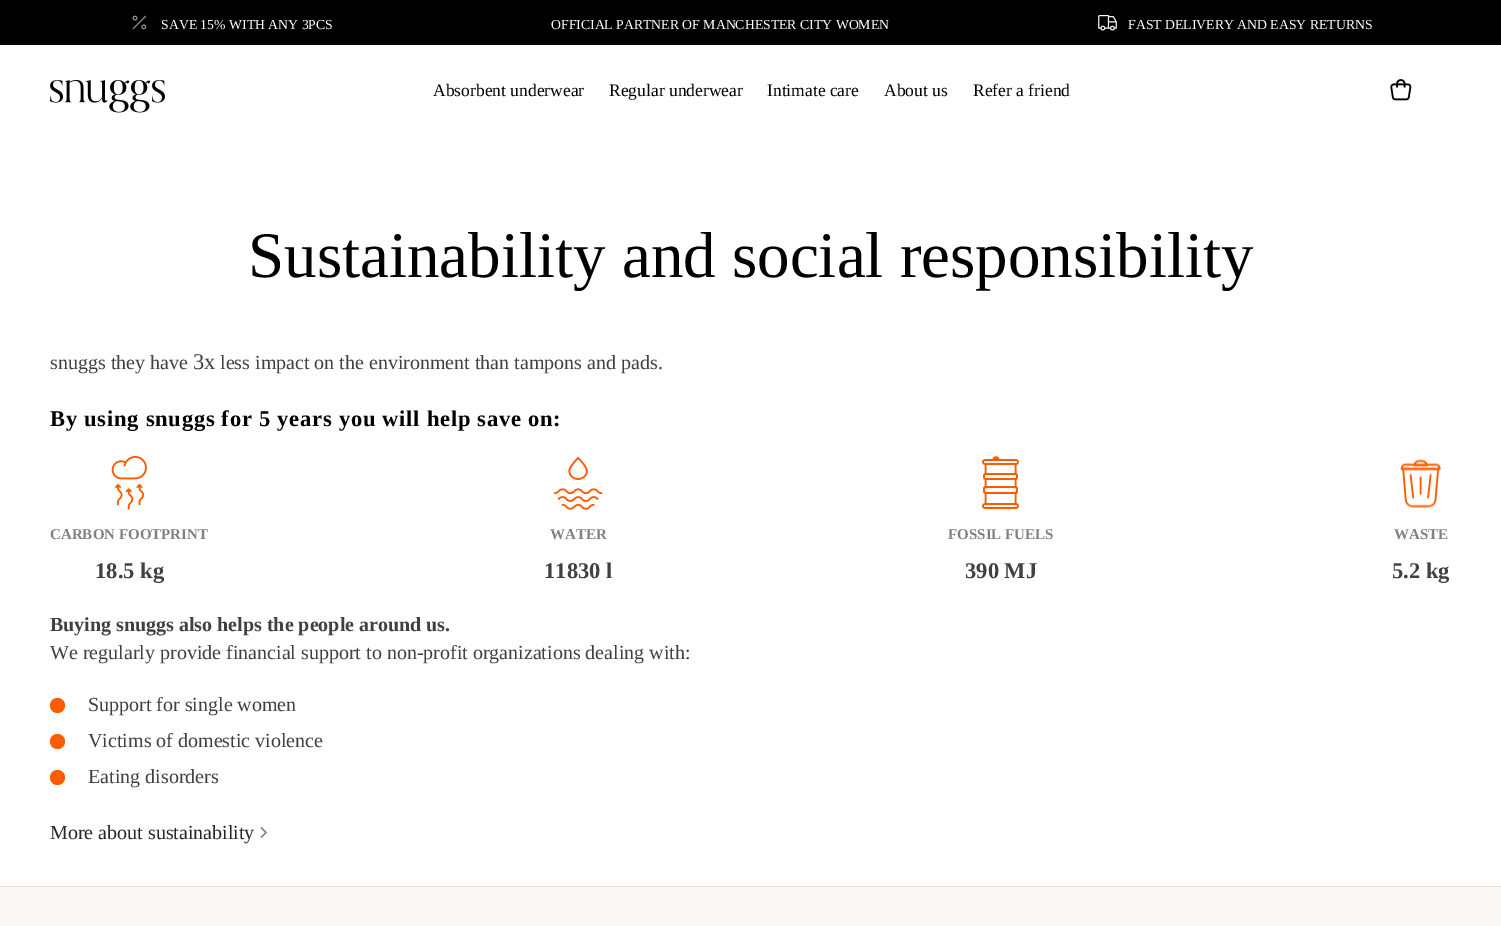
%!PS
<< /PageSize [1501 926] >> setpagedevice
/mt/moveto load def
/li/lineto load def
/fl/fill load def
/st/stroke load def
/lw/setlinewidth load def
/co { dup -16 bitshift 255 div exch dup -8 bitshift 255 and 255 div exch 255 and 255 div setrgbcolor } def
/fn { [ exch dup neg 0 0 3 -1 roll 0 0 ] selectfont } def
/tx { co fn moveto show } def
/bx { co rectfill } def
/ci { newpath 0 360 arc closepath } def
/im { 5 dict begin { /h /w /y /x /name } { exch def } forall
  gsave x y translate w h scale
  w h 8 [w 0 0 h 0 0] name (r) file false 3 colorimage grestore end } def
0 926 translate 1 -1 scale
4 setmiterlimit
0 0 1501 926 16#FFFFFF bx
0 0 1501 45 16#000000 bx
(media/1.raw) 132 15 15 15 im
(media/2.raw) 1098 15 19 16 im
(media/3.raw) 50 80 115 33 im
(media/4.raw) 1390 79 22 22 im
(media/5.raw) 111 456 36 54 im
(media/6.raw) 553 456 50 54 im
(media/7.raw) 982 456 37 53 im
(media/8.raw) 1400 459 41 49 im
16#FF5B00 co
57.5 705.5 7.5 ci fl
57.5 741.5 7.5 ci fl
57.5 777.5 7.5 ci fl
16#808080 co
1.2 lw
261 837.5 mt 266 832.5 li 261 827.5 li st
0 887 1501 39 16#FBF7F4 bx
0 886 1501 1 16#E5E5E0 bx
(SAVE 15% WITH ANY 3PCS) 161 29 /LiberationSerif-Regular 13.75 16#FFFFFF tx
(OFFICIAL PARTNER OF MANCHESTER CITY WOMEN) 551 29 /LiberationSerif-Regular 13.75 16#FFFFFF tx
(FAST DELIVERY AND EASY RETURNS) 1128 29 /LiberationSerif-Regular 13.75 16#FFFFFF tx
(Absorbent underwear) 433 96 /LiberationSerif-Regular 17.5 16#000000 tx
(Regular underwear) 609 96 /LiberationSerif-Regular 17.5 16#000000 tx
(Intimate care) 767 96 /LiberationSerif-Regular 17.5 16#000000 tx
(About us) 884 96 /LiberationSerif-Regular 17.5 16#000000 tx
(Refer a friend) 973 96 /LiberationSerif-Regular 17.5 16#000000 tx
(Sustainability and social responsibility) 248 277 /LiberationSerif-Regular 65 16#000000 tx
(snuggs they have) 50 369 /LiberationSerif-Regular 20 16#404040 tx
(3x) 193 369 /LiberationSerif-Regular 22.5 16#404040 tx
(less impact on the environment than tampons and pads.) 220 369 /LiberationSerif-Regular 20 16#404040 tx
/LiberationSerif-Bold 22.5 fn
16#000000 co
50 426 mt .75 0 (By using snuggs for 5 years you will help save on:) ashow
(CARBON FOOTPRINT) 50 539 /LiberationSerif-Bold 15 16#808080 tx
(18.5 kg) 95 578 /LiberationSerif-Bold 22.5 16#404040 tx
(WATER) 550 539 /LiberationSerif-Bold 15 16#808080 tx
(11830 l) 544 578 /LiberationSerif-Bold 22.5 16#404040 tx
(FOSSIL FUELS) 948 539 /LiberationSerif-Bold 15 16#808080 tx
(390 MJ) 965 578 /LiberationSerif-Bold 22.5 16#404040 tx
(WASTE) 1394 539 /LiberationSerif-Bold 15 16#808080 tx
(5.2 kg) 1392 578 /LiberationSerif-Bold 22.5 16#404040 tx
(Buying snuggs also helps the people around us.) 50 631 /LiberationSerif-Bold 20 16#404040 tx
(We regularly provide financial support to non-profit organizations dealing with:) 50 659 /LiberationSerif-Regular 20 16#404040 tx
(Support for single women) 88 711 /LiberationSerif-Regular 20 16#404040 tx
(Victims of domestic violence) 88 747 /LiberationSerif-Regular 20 16#404040 tx
(Eating disorders) 88 783 /LiberationSerif-Regular 20 16#404040 tx
(More about sustainability) 50 839 /LiberationSerif-Regular 20 16#262626 tx
showpage
